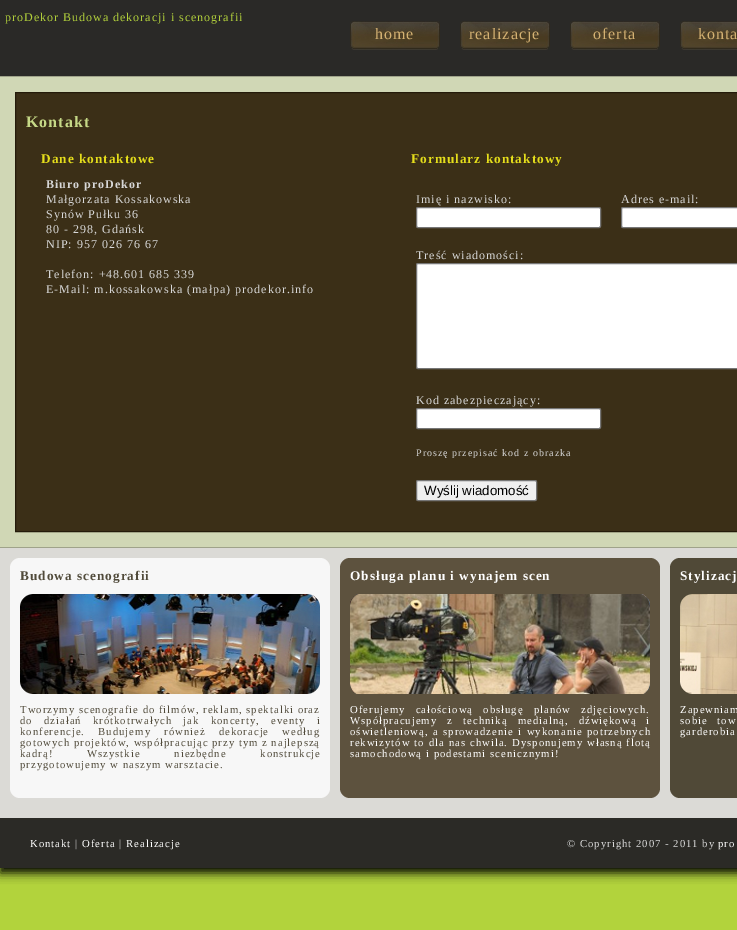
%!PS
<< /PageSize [737 930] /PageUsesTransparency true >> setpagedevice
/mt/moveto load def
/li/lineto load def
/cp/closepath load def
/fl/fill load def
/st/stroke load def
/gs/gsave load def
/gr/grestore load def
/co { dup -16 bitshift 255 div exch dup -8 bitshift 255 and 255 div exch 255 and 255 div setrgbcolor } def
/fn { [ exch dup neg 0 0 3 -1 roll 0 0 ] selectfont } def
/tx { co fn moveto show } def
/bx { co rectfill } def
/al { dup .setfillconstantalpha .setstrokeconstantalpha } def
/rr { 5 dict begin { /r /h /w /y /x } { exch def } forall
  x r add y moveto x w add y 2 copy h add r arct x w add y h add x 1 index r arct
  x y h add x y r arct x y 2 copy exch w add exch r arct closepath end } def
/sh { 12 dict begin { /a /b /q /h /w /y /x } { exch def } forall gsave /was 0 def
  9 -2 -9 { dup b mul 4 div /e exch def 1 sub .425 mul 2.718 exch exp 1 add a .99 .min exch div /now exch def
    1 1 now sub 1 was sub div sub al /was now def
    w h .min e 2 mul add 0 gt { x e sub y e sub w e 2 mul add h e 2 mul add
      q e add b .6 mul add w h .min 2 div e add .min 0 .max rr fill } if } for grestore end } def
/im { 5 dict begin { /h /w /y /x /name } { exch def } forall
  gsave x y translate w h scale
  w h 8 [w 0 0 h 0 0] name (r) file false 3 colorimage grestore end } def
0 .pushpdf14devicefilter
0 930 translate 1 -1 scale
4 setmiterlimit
0 0 737 930 16#B2D33C bx
16#000000 co
0 5 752 868 0 5 1 sh
0 0 737 76 16#2A2927 bx
(media/1.raw) 350 21 90 29 im
(media/1.raw) 460 21 90 29 im
(media/1.raw) 570 21 90 29 im
(media/2.raw) 680 21 57 29 im
0 77 737 470 16#D0D7B5 bx
0 76 737 1 16#9FA38A bx
16#3B2F17 co
15.5 92.5 mt 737.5 92.5 li 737.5 531.5 li 15.5 531.5 li cp gs fl gr
16#241B0A co
st
16#FFFFFF co
416.5 207.5 184 20 1.5 rr gs fl gr
16#767676 co
st
16#FFFFFF co
621.5 207.5 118 20 1.5 rr gs fl gr
16#767676 co
st
16#FFFFFF co
416.5 263.5 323 105 1.5 rr gs fl gr
16#767676 co
st
16#FFFFFF co
416.5 408.5 184 20 1.5 rr gs fl gr
16#767676 co
st
16#EFEFEF co
416.5 480.5 120 20 1.5 rr gs fl gr
16#767676 co
st
0 548 737 270 16#DBDAD6 bx
0 547 737 1 16#9FA38A bx
16#F7F7F7 co
10 558 320 240 10 rr fl
(media/3.raw) 20 594 300 100 im
16#5D523E co
340 558 320 240 10 rr fl
(media/4.raw) 350 594 300 100 im
16#504937 co
670 558 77 240 10 rr fl
(media/5.raw) 680 594 57 100 im
0 818 737 50 16#2B2A26 bx
/LiberationSerif-Regular 12 fn
16#B1CF3B co
5 21 mt 1 0 (proDekor Budowa dekoracji i scenografii) ashow
/LiberationSerif-Regular 16 fn
16#D4B172 co
375 39 mt 1 0 (home) ashow
469 39 mt 1 0 (realizacje) ashow
593 39 mt 1 0 (oferta) ashow
698 39 mt 1 0 (konta) ashow
/LiberationSerif-Bold 16 fn
16#C6D987 co
26 127 mt 1 0 (Kontakt) ashow
/LiberationSerif-Bold 13.3 fn
16#E5DE1B co
41 163 mt 1 0 (Dane kontaktowe) ashow
/LiberationSerif-Bold 12 fn
16#D7D7D7 co
46 188 mt 1 0 (Biuro proDekor) ashow
/LiberationSerif-Regular 12 fn
46 203 mt 1 0 (Małgorzata Kossakowska) ashow
46 218 mt 1 0 (Synów Pułku 36) ashow
46 233 mt 1 0 (80 - 298, Gdańsk) ashow
46 248 mt 1 0 (NIP: 957 026 76 67) ashow
46 278 mt 1 0 (Telefon: +48.601 685 339) ashow
46 293 mt 1 0 (E-Mail: m.kossakowska \(małpa\) prodekor.info) ashow
/LiberationSerif-Bold 13.3 fn
16#E5DE1B co
411 163 mt 1 0 (Formularz kontaktowy) ashow
/LiberationSerif-Regular 12 fn
16#D7D7D7 co
416 203 mt 1 0 (Imię i nazwisko:) ashow
621 203 mt 1 0 (Adres e-mail:) ashow
416 259 mt 1 0 (Treść wiadomości:) ashow
416 404 mt 1 0 (Kod zabezpieczający:) ashow
/LiberationSerif-Regular 10 fn
416 456 mt 1 0 (Proszę przepisać kod z obrazka) ashow
(Wyślij wiadomość) 424 495 /LiberationSans-Regular 13.3 16#000000 tx
/LiberationSerif-Bold 13.3 fn
16#504A3A co
20 580 mt 1 0 (Budowa scenografii) ashow
/LiberationSerif-Regular 10.7 fn
20 713 mt 1 0 (Tworzymy scenografie do filmów, reklam, spektalki oraz) ashow
20 724 mt 7.5 0 32 1 0 (do działań krótkotrwałych jak koncerty, eventy i) awidthshow
20 735 mt 9.5 0 32 1 0 (konferencje. Budujemy również dekoracje według) awidthshow
20 746 mt 1 0 (gotowych projektów, współpracując przy tym z najlepszą) ashow
20 757 mt 30 0 32 1 0 (kadrą! Wszystkie niezbędne konstrukcje) awidthshow
20 768 mt 1 0 (przygotowujemy w naszym warsztacie.) ashow
/LiberationSerif-Bold 13.3 fn
16#FFFFFF co
350 580 mt 1 0 (Obsługa planu i wynajem scen) ashow
/LiberationSerif-Regular 10.7 fn
350 713 mt 6.5 0 32 1 0 (Oferujemy całościową obsługę planów zdjęciowych.) awidthshow
350 724 mt 6.5 0 32 1 0 (Współpracujemy z techniką medialną, dźwiękową i) awidthshow
350 735 mt .75 0 32 1 0 (oświetleniową, a sprowadzenie i wykonanie potrzebnych) awidthshow
350 746 mt .25 0 32 1 0 (rekwizytów to dla nas chwila. Dysponujemy własną flotą) awidthshow
350 757 mt 1 0 (samochodową i podestami scenicznymi!) ashow
/LiberationSerif-Bold 13.3 fn
680 580 mt 1 0 (Stylizacj) ashow
/LiberationSerif-Regular 10.7 fn
680 713 mt 2 0 32 1 0 (Zapewniam) awidthshow
680 724 mt 6 0 32 1 0 (sobie tow) awidthshow
680 735 mt 1 0 (garderobia) ashow
30 847 mt 1 0 (Kontakt) ashow
16#D7D7D7 co
75 847 mt 1 0 (|) ashow
16#FFFFFF co
82 847 mt 1 0 (Oferta) ashow
16#D7D7D7 co
119 847 mt 1 0 (|) ashow
16#FFFFFF co
126 847 mt 1 0 (Realizacje) ashow
16#D7D7D7 co
567 847 mt 1 0 (© Copyright 2007 - 2011 by) ashow
16#FFFFFF co
718 847 mt 1 0 (pro) ashow
.poppdf14devicefilter showpage
